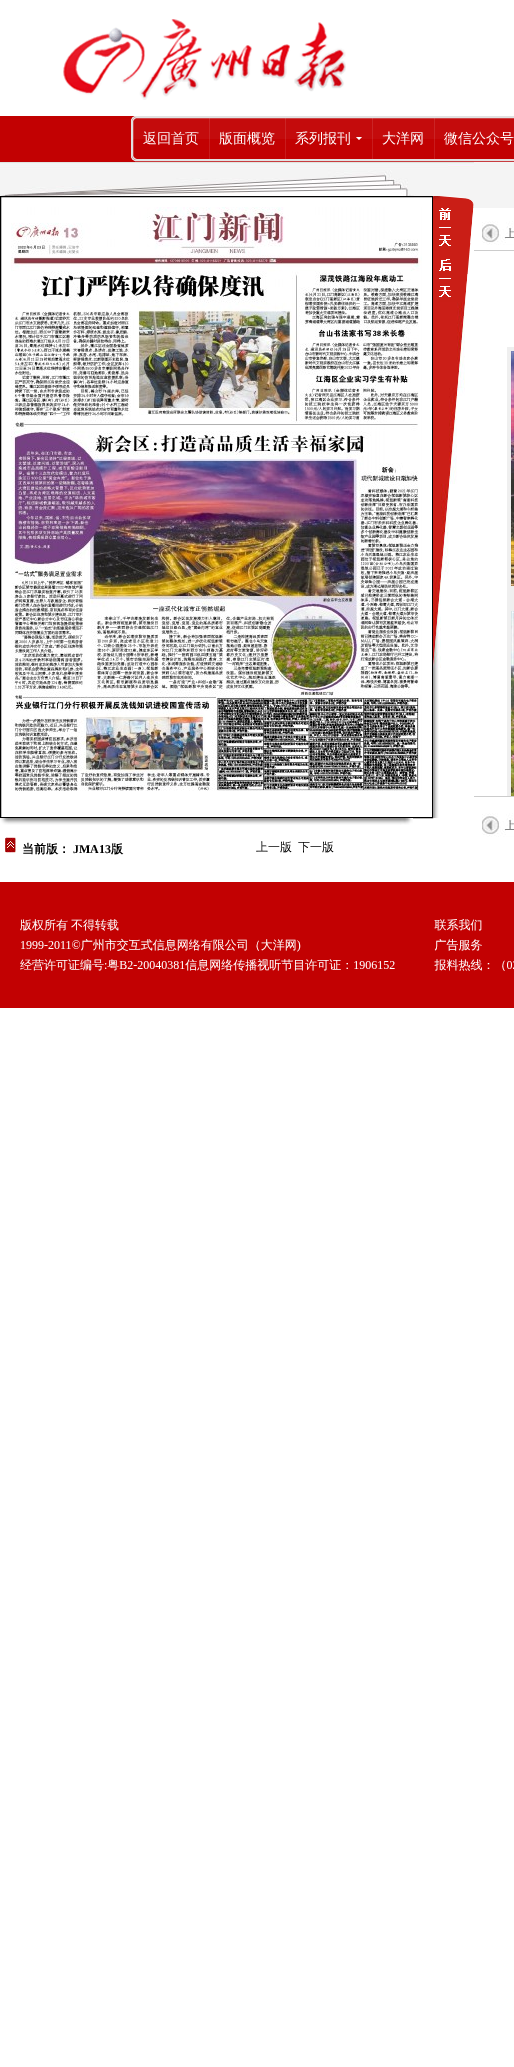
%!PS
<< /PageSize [514 2067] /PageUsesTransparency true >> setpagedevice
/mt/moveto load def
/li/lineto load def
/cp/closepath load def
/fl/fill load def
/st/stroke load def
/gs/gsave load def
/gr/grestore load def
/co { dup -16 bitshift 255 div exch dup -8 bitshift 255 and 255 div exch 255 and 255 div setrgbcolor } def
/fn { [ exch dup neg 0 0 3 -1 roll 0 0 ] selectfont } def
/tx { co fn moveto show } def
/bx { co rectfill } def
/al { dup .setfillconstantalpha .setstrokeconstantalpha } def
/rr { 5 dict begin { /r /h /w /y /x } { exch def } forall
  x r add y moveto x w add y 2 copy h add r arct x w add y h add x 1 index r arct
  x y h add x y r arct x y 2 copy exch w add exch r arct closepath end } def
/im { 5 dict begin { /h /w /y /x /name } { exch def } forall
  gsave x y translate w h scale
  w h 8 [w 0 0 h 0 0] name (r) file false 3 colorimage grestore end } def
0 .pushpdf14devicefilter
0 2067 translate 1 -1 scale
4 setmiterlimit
0 0 514 2067 16#FFFFFF bx
(media/1.raw) 0 116 514 80 im
(media/2.raw) 63 19 283 81 im
131.5 116.5 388 44 4.5 rr gs fl gr
16#E1E1E1 co
st
16#C20102 co
132 117 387 43 5 rr fl
0.04 al
132 118 382 21 16#FFFFFF bx
1 al
16#E1E1E1 co
132.5 117.5 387 42 4.5 rr st
0.1 al
209 118 1 41 16#FFFFFF bx
285 118 1 41 16#FFFFFF bx
372 118 1 41 16#FFFFFF bx
1 al
356 137 mt 362 137 li 359 140 li cp fl
0.1 al
434 118 1 41 16#FFFFFF bx
1 al
474 162 40 46 16#F4F4F4 bx
474 250 40 1 16#CCCCCC bx
(media/3.raw) 482 221 32 24 im
507 347 7 449 16#EFEFEF bx
(media/4.raw) 511 351 3 235 im
(media/5.raw) 511 611 3 185 im
474 796 40 1 16#CCCCCC bx
(media/3.raw) 482 813 32 24 im
(media/6.raw) 0 165 448 31 im
16#000000 co
.5 196.5 432 621 rectstroke
(media/7.raw) 11 207 411 584 im
(media/8.raw) 433 251 41 567 im
(media/9.raw) 433 196 41 55 im
(media/10.raw) 439 251 34 51 im
(media/11.raw) 0 818 413 7 im
(media/12.raw) 5 837 11 16 im
0 882 514 126 16#C20102 bx
(media/13.raw) 20 919 494 52 im
(返回首页) 143 143 /WenQuanYiZenHei-Medium 14 16#FFFFFF tx
(版面概览) 219 143 /WenQuanYiZenHei-Medium 14 16#FFFFFF tx
(系列报刊) 295 143 /WenQuanYiZenHei-Medium 14 16#FFFFFF tx
(大洋网) 382 143 /WenQuanYiZenHei-Medium 14 16#FFFFFF tx
(微信公众号) 444 143 /WenQuanYiZenHei-Medium 14 16#FFFFFF tx
(当前版：) 22 853 /WenQuanYiZenHei-Bold 12 16#000000 tx
(JMA13) 73 853 /LiberationSerif-Bold 12 16#000000 tx
(版) 111 853 /WenQuanYiZenHei-Bold 12 16#000000 tx
(上一版) 256 851 /WenQuanYiZenHei-Medium 12 16#000000 tx
(下一版) 298 851 /WenQuanYiZenHei-Medium 12 16#000000 tx
.poppdf14devicefilter showpage
